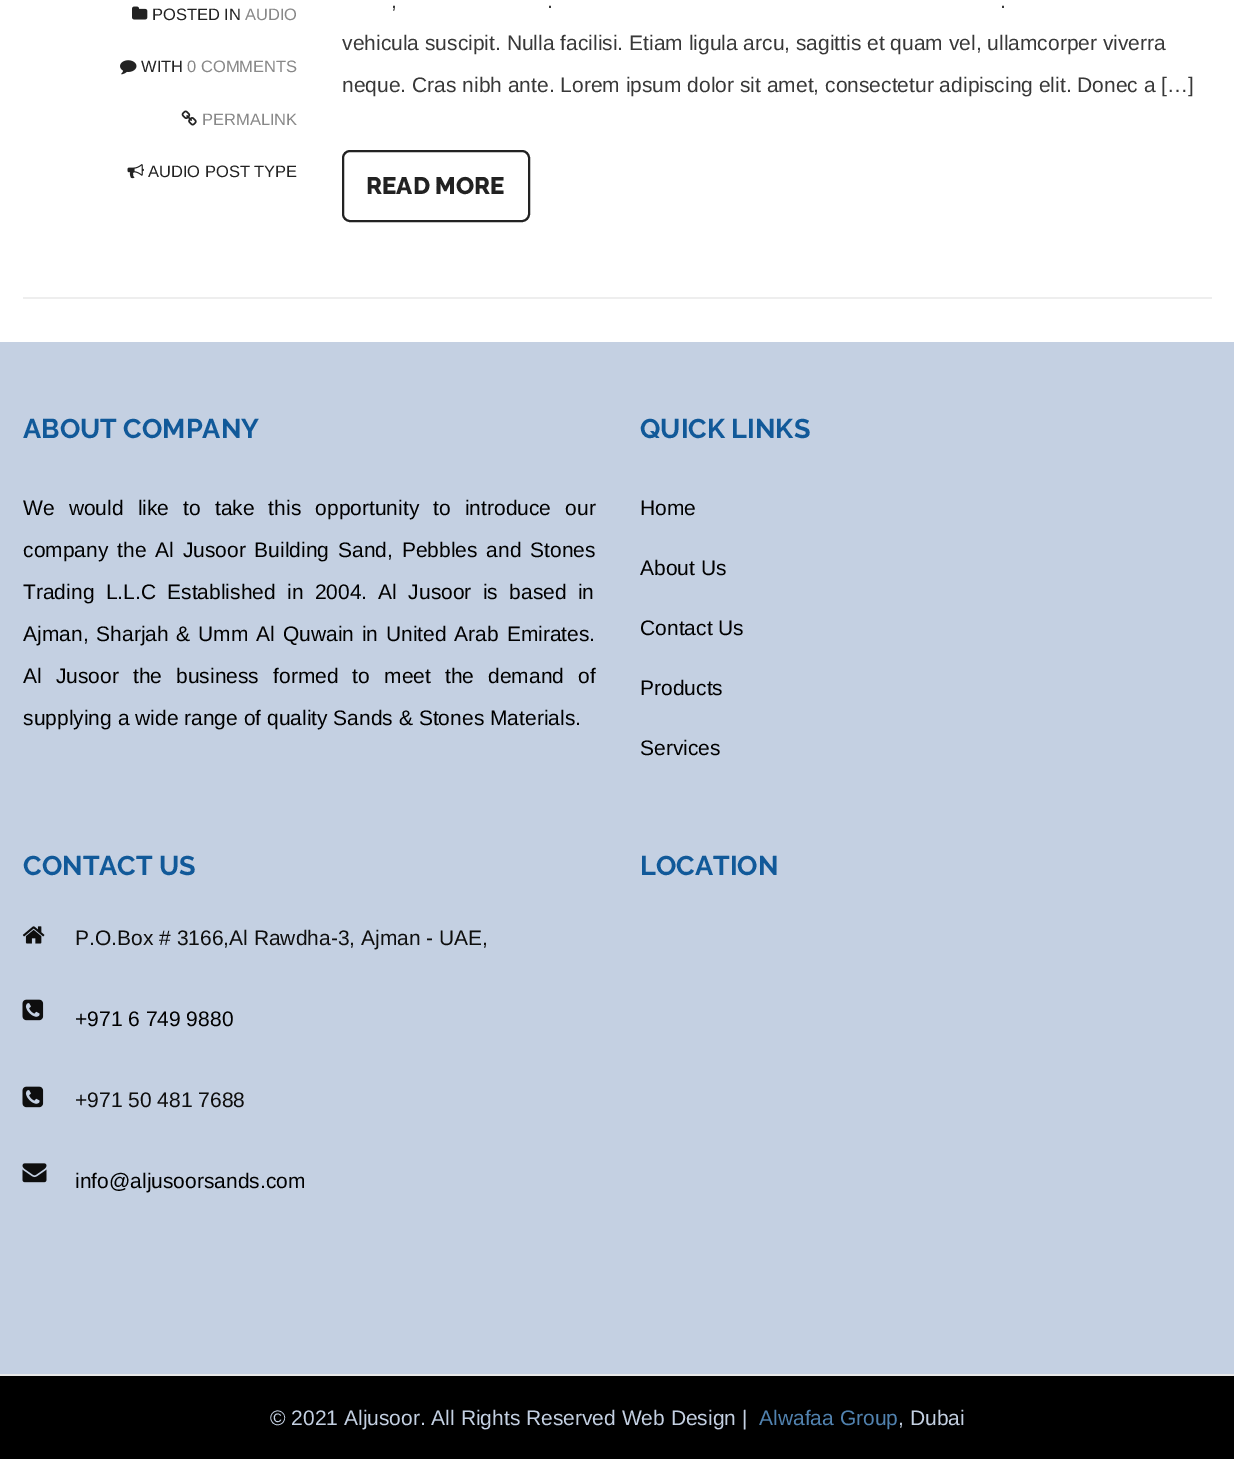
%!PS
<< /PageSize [1234 1459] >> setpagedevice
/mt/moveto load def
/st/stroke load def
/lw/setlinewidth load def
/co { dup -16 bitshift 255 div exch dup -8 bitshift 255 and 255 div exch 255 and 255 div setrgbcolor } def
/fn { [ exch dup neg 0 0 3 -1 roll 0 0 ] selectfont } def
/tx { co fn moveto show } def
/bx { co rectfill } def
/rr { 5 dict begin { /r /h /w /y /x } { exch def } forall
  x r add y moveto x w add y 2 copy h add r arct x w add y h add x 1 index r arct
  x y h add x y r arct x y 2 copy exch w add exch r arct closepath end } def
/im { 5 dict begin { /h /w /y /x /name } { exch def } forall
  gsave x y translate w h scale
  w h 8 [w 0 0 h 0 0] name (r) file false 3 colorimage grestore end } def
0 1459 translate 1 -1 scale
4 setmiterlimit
0 0 1234 1459 16#FFFFFF bx
23 297 1189 2 16#EEEEEE bx
(media/1.raw) 132 6 16 14 im
(media/2.raw) 120 60 17 15 im
(media/3.raw) 181 110 16 16 im
(media/4.raw) 127 164 17 15 im
16#222222 co
2 lw
343 151 186 70 7 rr st
0 342 1234 1032 16#C4D0E2 bx
(media/5.raw) 22 926 23 18 im
(media/6.raw) 22 999 22 22 im
(media/6.raw) 22 1086 22 22 im
(media/7.raw) 22 1163 25 20 im
0 1376 1234 83 16#000000 bx
0 1374 1234 2 16#E9E9E9 bx
(POSTED IN) 152 20 /LiberationSans-Regular 16.5 16#222222 tx
(AUDIO) 245 20 /LiberationSans-Regular 16.5 16#888888 tx
(WITH) 141 72 /LiberationSans-Regular 16.5 16#222222 tx
(0 COMMENTS) 187 72 /LiberationSans-Regular 16.5 16#888888 tx
(PERMALINK) 202 125 /LiberationSans-Regular 16.5 16#888888 tx
(AUDIO POST TYPE) 148 177 /LiberationSans-Regular 16.5 16#222222 tx
(,) 391 8 /LiberationSans-Regular 21 16#383838 tx
(.) 547 8 /LiberationSans-Regular 21 16#383838 tx
(.) 1000 8 /LiberationSans-Regular 21 16#383838 tx
(vehicula suscipit. Nulla facilisi. Etiam ligula arcu, sagittis et quam vel, ullamcorper viverra) 342 50 /LiberationSans-Regular 21 16#383838 tx
(neque. Cras nibh ante. Lorem ipsum dolor sit amet, consectetur adipiscing elit. Donec a […]) 342 92 /LiberationSans-Regular 21 16#383838 tx
(READ MORE) 366 194 /Raleway-ExtraBold 24 16#222222 tx
(ABOUT COMPANY) 23 438 /Raleway-Bold 27 16#115999 tx
/LiberationSans-Regular 21 fn
16#000000 co
23 515 mt 8.25 0 32 (We would like to take this opportunity to introduce our) widthshow
23 557 mt 3 0 32 (company the Al Jusoor Building Sand, Pebbles and Stones) widthshow
23 599 mt 5.5 0 32 (Trading L.L.C Established in 2004. Al Jusoor is based in) widthshow
23 641 mt 2 0 32 (Ajman, Sharjah & Umm Al Quwain in United Arab Emirates.) widthshow
23 683 mt 8.25 0 32 (Al Jusoor the business formed to meet the demand of) widthshow
(supplying a wide range of quality Sands & Stones Materials.) 23 725 /LiberationSans-Regular 21 16#000000 tx
(QUICK LINKS) 640 438 /Raleway-Bold 27 16#115999 tx
(Home) 640 515 /LiberationSans-Regular 21 16#000000 tx
(About Us) 640 575 /LiberationSans-Regular 21 16#000000 tx
(Contact Us) 640 635 /LiberationSans-Regular 21 16#000000 tx
(Products) 640 695 /LiberationSans-Regular 21 16#000000 tx
(Services) 640 755 /LiberationSans-Regular 21 16#000000 tx
(CONTACT US) 23 875 /Raleway-Bold 27 16#115999 tx
(P.O.Box # 3166,Al Rawdha-3, Ajman - UAE,) 75 945 /LiberationSans-Regular 21 16#0E0E0E tx
(+971 6 749 9880) 75 1026 /LiberationSans-Regular 21 16#000000 tx
(+971 50 481 7688) 75 1107 /LiberationSans-Regular 21 16#0E0E0E tx
(info@aljusoorsands.com) 75 1188 /LiberationSans-Regular 21 16#000000 tx
(LOCATION) 640 875 /Raleway-Bold 27 16#115999 tx
(© 2021 Aljusoor. All Rights Reserved Web Design |) 270 1425 /LiberationSans-Regular 21 16#C4D0E2 tx
(Alwafaa Group) 759 1425 /LiberationSans-Regular 21 16#5182AF tx
(, Dubai) 898 1425 /LiberationSans-Regular 21 16#C4D0E2 tx
showpage
